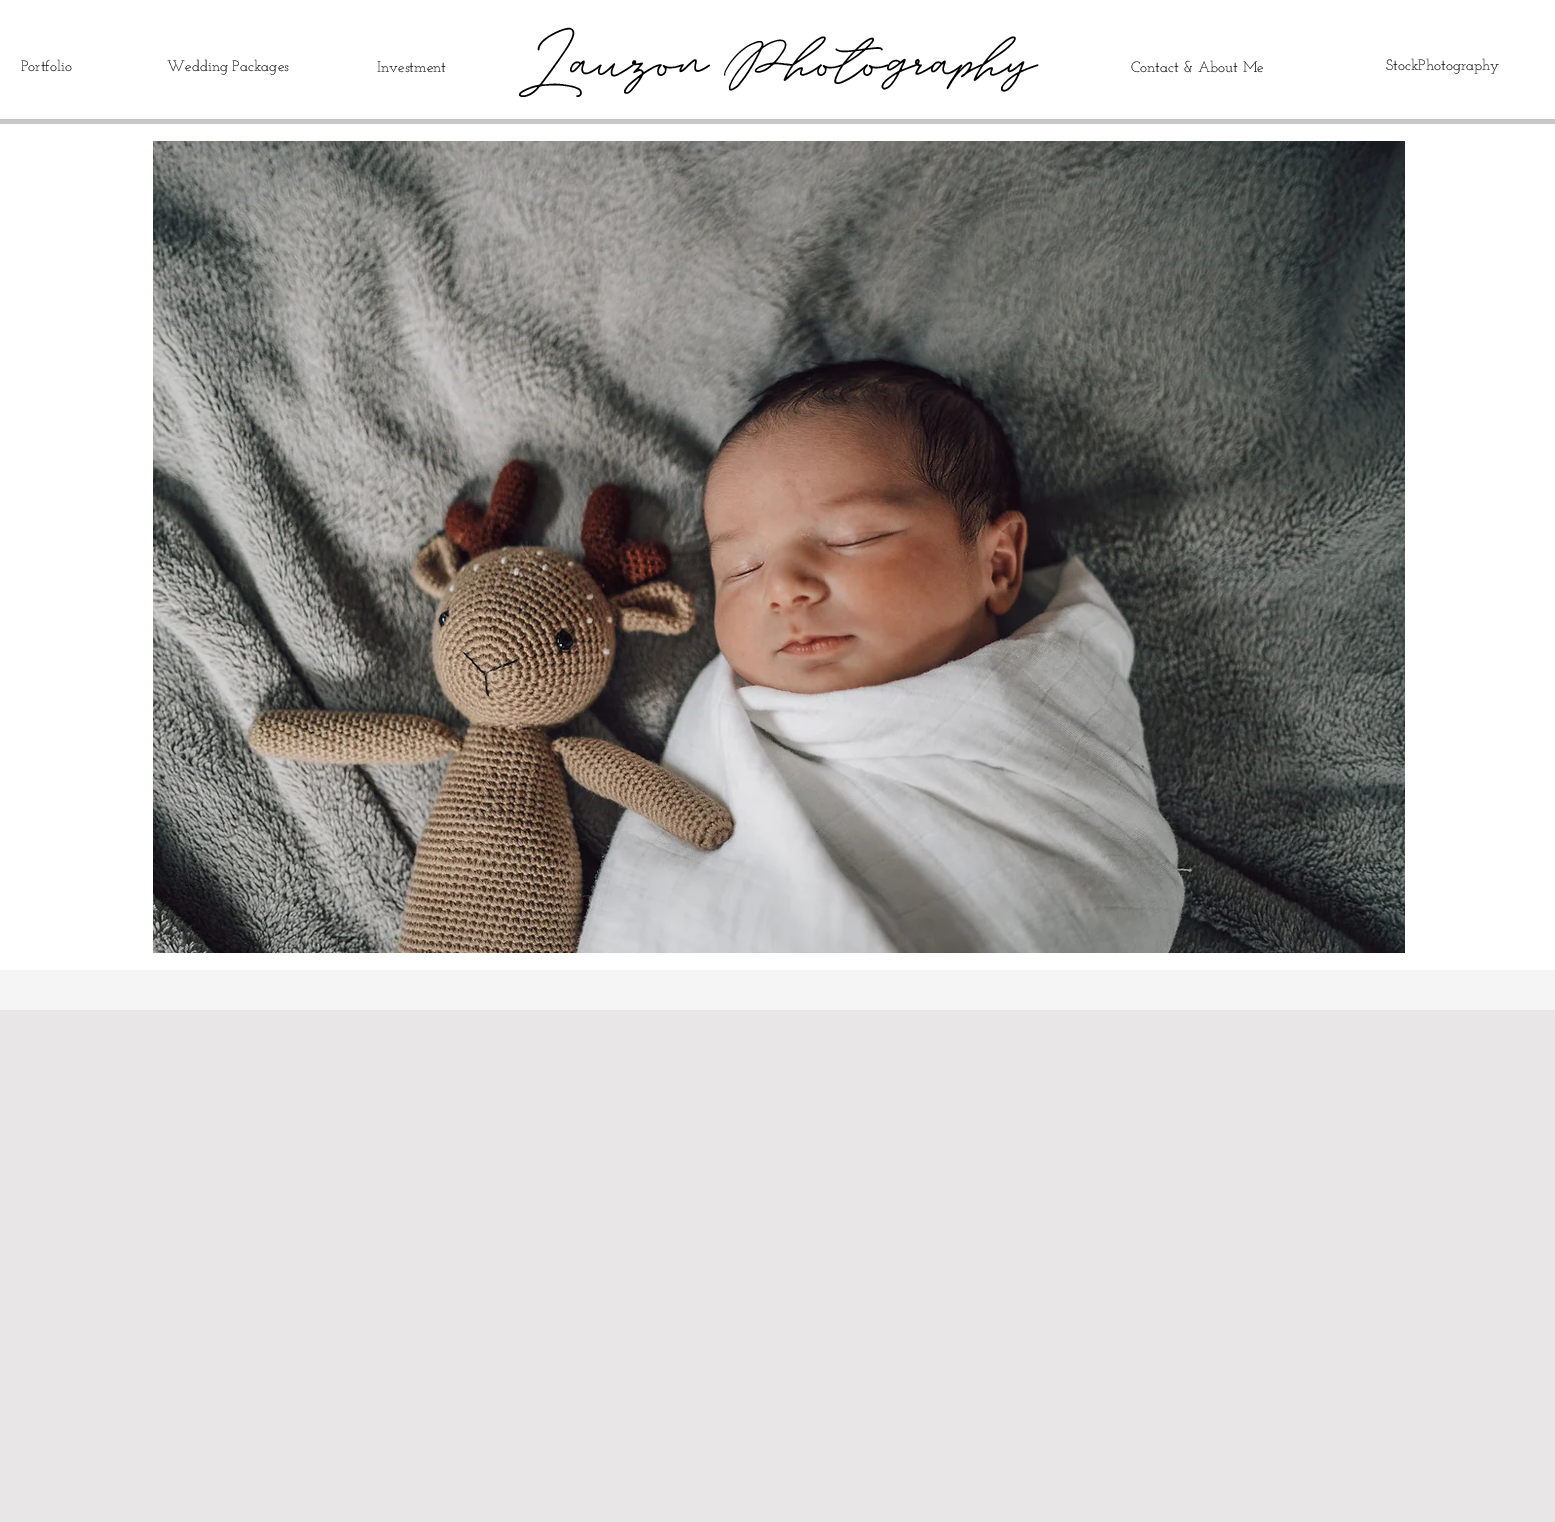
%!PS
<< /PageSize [1555 1522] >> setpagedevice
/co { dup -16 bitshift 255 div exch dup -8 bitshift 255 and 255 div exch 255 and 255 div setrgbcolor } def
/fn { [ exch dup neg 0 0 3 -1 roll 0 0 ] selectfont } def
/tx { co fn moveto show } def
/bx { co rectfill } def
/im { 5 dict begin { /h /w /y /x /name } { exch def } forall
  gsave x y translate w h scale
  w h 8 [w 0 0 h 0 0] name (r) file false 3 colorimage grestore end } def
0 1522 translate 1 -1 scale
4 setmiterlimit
0 0 1555 1522 16#E8E6E6 bx
0 0 1555 119 16#FFFFFF bx
0 119 1555 5 16#C7C7C7 bx
0 124 1555 846 16#FFFFFF bx
(media/1.raw) 153 141 1252 812 im
0 970 1555 40 16#F6F5F5 bx
(Portfolio) 21 71 /JosefinSlab-Regular 15 16#000000 tx
(Wedding Packages) 167 71 /JosefinSlab-Regular 15 16#000000 tx
(Investment) 377 72 /JosefinSlab-Regular 15 16#000000 tx
(Lauzon Photography) 519 93 /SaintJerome-Regular 88 16#000000 tx
(Contact & About Me) 1131 72 /JosefinSlab-Regular 15 16#000000 tx
(StockPhotography) 1386 70 /JosefinSlab-Regular 15 16#000000 tx
showpage
